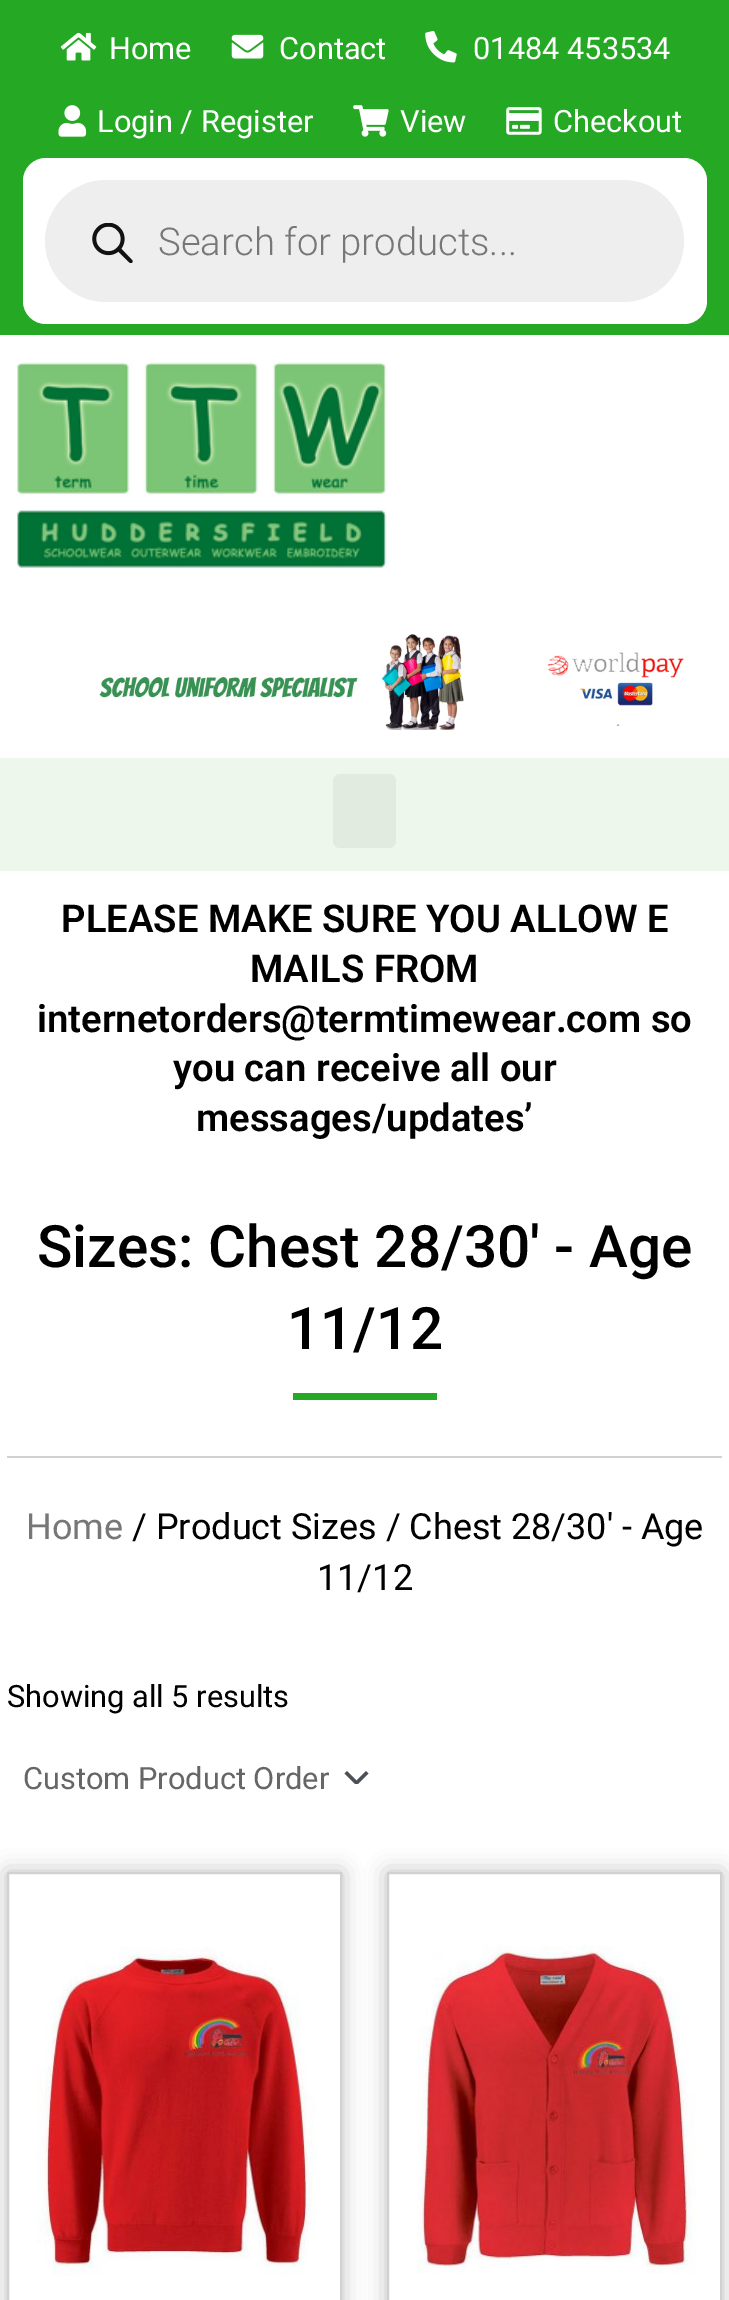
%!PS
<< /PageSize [729 2300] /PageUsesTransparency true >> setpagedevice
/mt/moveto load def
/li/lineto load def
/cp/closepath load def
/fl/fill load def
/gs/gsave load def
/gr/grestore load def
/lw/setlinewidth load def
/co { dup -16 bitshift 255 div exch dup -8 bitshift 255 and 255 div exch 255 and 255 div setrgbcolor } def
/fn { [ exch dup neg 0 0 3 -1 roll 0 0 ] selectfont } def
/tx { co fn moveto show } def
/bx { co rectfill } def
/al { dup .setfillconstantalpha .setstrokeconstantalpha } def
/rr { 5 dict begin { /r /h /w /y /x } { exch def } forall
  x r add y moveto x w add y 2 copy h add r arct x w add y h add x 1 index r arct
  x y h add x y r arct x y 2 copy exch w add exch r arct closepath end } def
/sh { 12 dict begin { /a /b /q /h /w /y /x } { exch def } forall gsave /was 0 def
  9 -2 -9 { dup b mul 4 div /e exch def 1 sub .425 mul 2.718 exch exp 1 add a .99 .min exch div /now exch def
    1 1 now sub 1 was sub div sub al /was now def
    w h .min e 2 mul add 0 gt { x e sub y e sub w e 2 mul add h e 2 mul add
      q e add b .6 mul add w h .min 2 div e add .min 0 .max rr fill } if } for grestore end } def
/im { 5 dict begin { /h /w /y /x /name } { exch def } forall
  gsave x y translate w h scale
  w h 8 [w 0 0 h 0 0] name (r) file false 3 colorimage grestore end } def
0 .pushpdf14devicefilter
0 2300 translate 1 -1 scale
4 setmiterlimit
0 0 729 2300 16#FFFFFF bx
0 0 729 335 16#25A824 bx
(media/1.raw) 60 32 37 29 im
(media/2.raw) 231 34 33 25 im
(media/3.raw) 425 31 32 32 im
(media/4.raw) 58 105 29 32 im
(media/5.raw) 353 105 36 32 im
(media/6.raw) 506 107 36 28 im
16#FFFFFF co
23 158 684 166 23 rr fl
16#EEEEEE co
45 180 639 122 61 rr fl
(media/7.raw) 92 223 41 40 im
(media/8.raw) 17 362 370 206 im
(media/9.raw) 99 634 585 96 im
0 758 729 113 16#EEF7EC bx
16#E2EBE0 co
333 774 63 74 7 rr fl
293 1393 144 7 16#25A824 bx
7 1456 715 2 16#D1D1D1 bx
gs
344 1771 25 13 rectclip
16#4B4F58 co
344.5 1773.5 mt 356.5 1785.5 li 368.5 1773.5 li 366 1771 li 356.5 1780.5 li 347 1771 li cp fl
gr
gs
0 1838 mt 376 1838 li 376 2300 li 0 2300 li cp 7 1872 mt 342 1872 li 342 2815 li 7 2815 li cp eoclip newpath
16#000000 co
7 1872 335 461 0 11 .25 sh
gr
2 lw
8 1873 333 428 rectstroke
(media/10.raw) 36 1947 280 329 im
gs
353 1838 mt 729 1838 li 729 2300 li 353 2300 li cp 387 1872 mt 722 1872 li 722 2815 li 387 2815 li cp eoclip newpath
16#000000 co
387 1872 335 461 0 11 .25 sh
gr
388 1873 333 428 rectstroke
(media/11.raw) 417 1945 279 329 im
(Home) 109 59 /Roboto-Regular 30.75 16#FFFFFF tx
(Contact) 279 59 /Roboto-Regular 30.75 16#FFFFFF tx
(01484 453534) 473 59 /Roboto-Regular 30.75 16#FFFFFF tx
(Login / Register) 97 132 /Roboto-Regular 30.75 16#FFFFFF tx
(View) 400 132 /Roboto-Regular 30.75 16#FFFFFF tx
(Checkout) 553 132 /Roboto-Regular 30.75 16#FFFFFF tx
(Search for products...) 158 255 /Roboto-Light 38.25 16#777777 tx
(PLEASE MAKE SURE YOU ALLOW E) 61 932 /Roboto-SemiBold 38.25 16#000000 tx
(MAILS FROM) 250 982 /Roboto-SemiBold 38.25 16#000000 tx
(internetorders@termtimewear.com so) 37 1032 /Roboto-SemiBold 38.25 16#000000 tx
(you can receive all our) 173 1081 /Roboto-SemiBold 38.25 16#000000 tx
(messages/updates’) 196 1131 /Roboto-SemiBold 38.25 16#000000 tx
(Sizes: Chest 28/30' - Age) 37 1267 /Roboto-Medium 58.5 16#000000 tx
(11/12) 287 1349 /Roboto-Medium 58.5 16#000000 tx
(Home) 26 1539 /Roboto-Regular 36 16#777777 tx
(/ Product Sizes / Chest 28/30' - Age) 132 1539 /Roboto-Regular 36 16#000000 tx
(11/12) 317 1590 /Roboto-Regular 36 16#000000 tx
(Showing all 5 results) 7 1707 /Roboto-Regular 30.75 16#000000 tx
(Custom Product Order) 23 1789 /Roboto-Regular 30.75 16#666666 tx
.poppdf14devicefilter showpage
